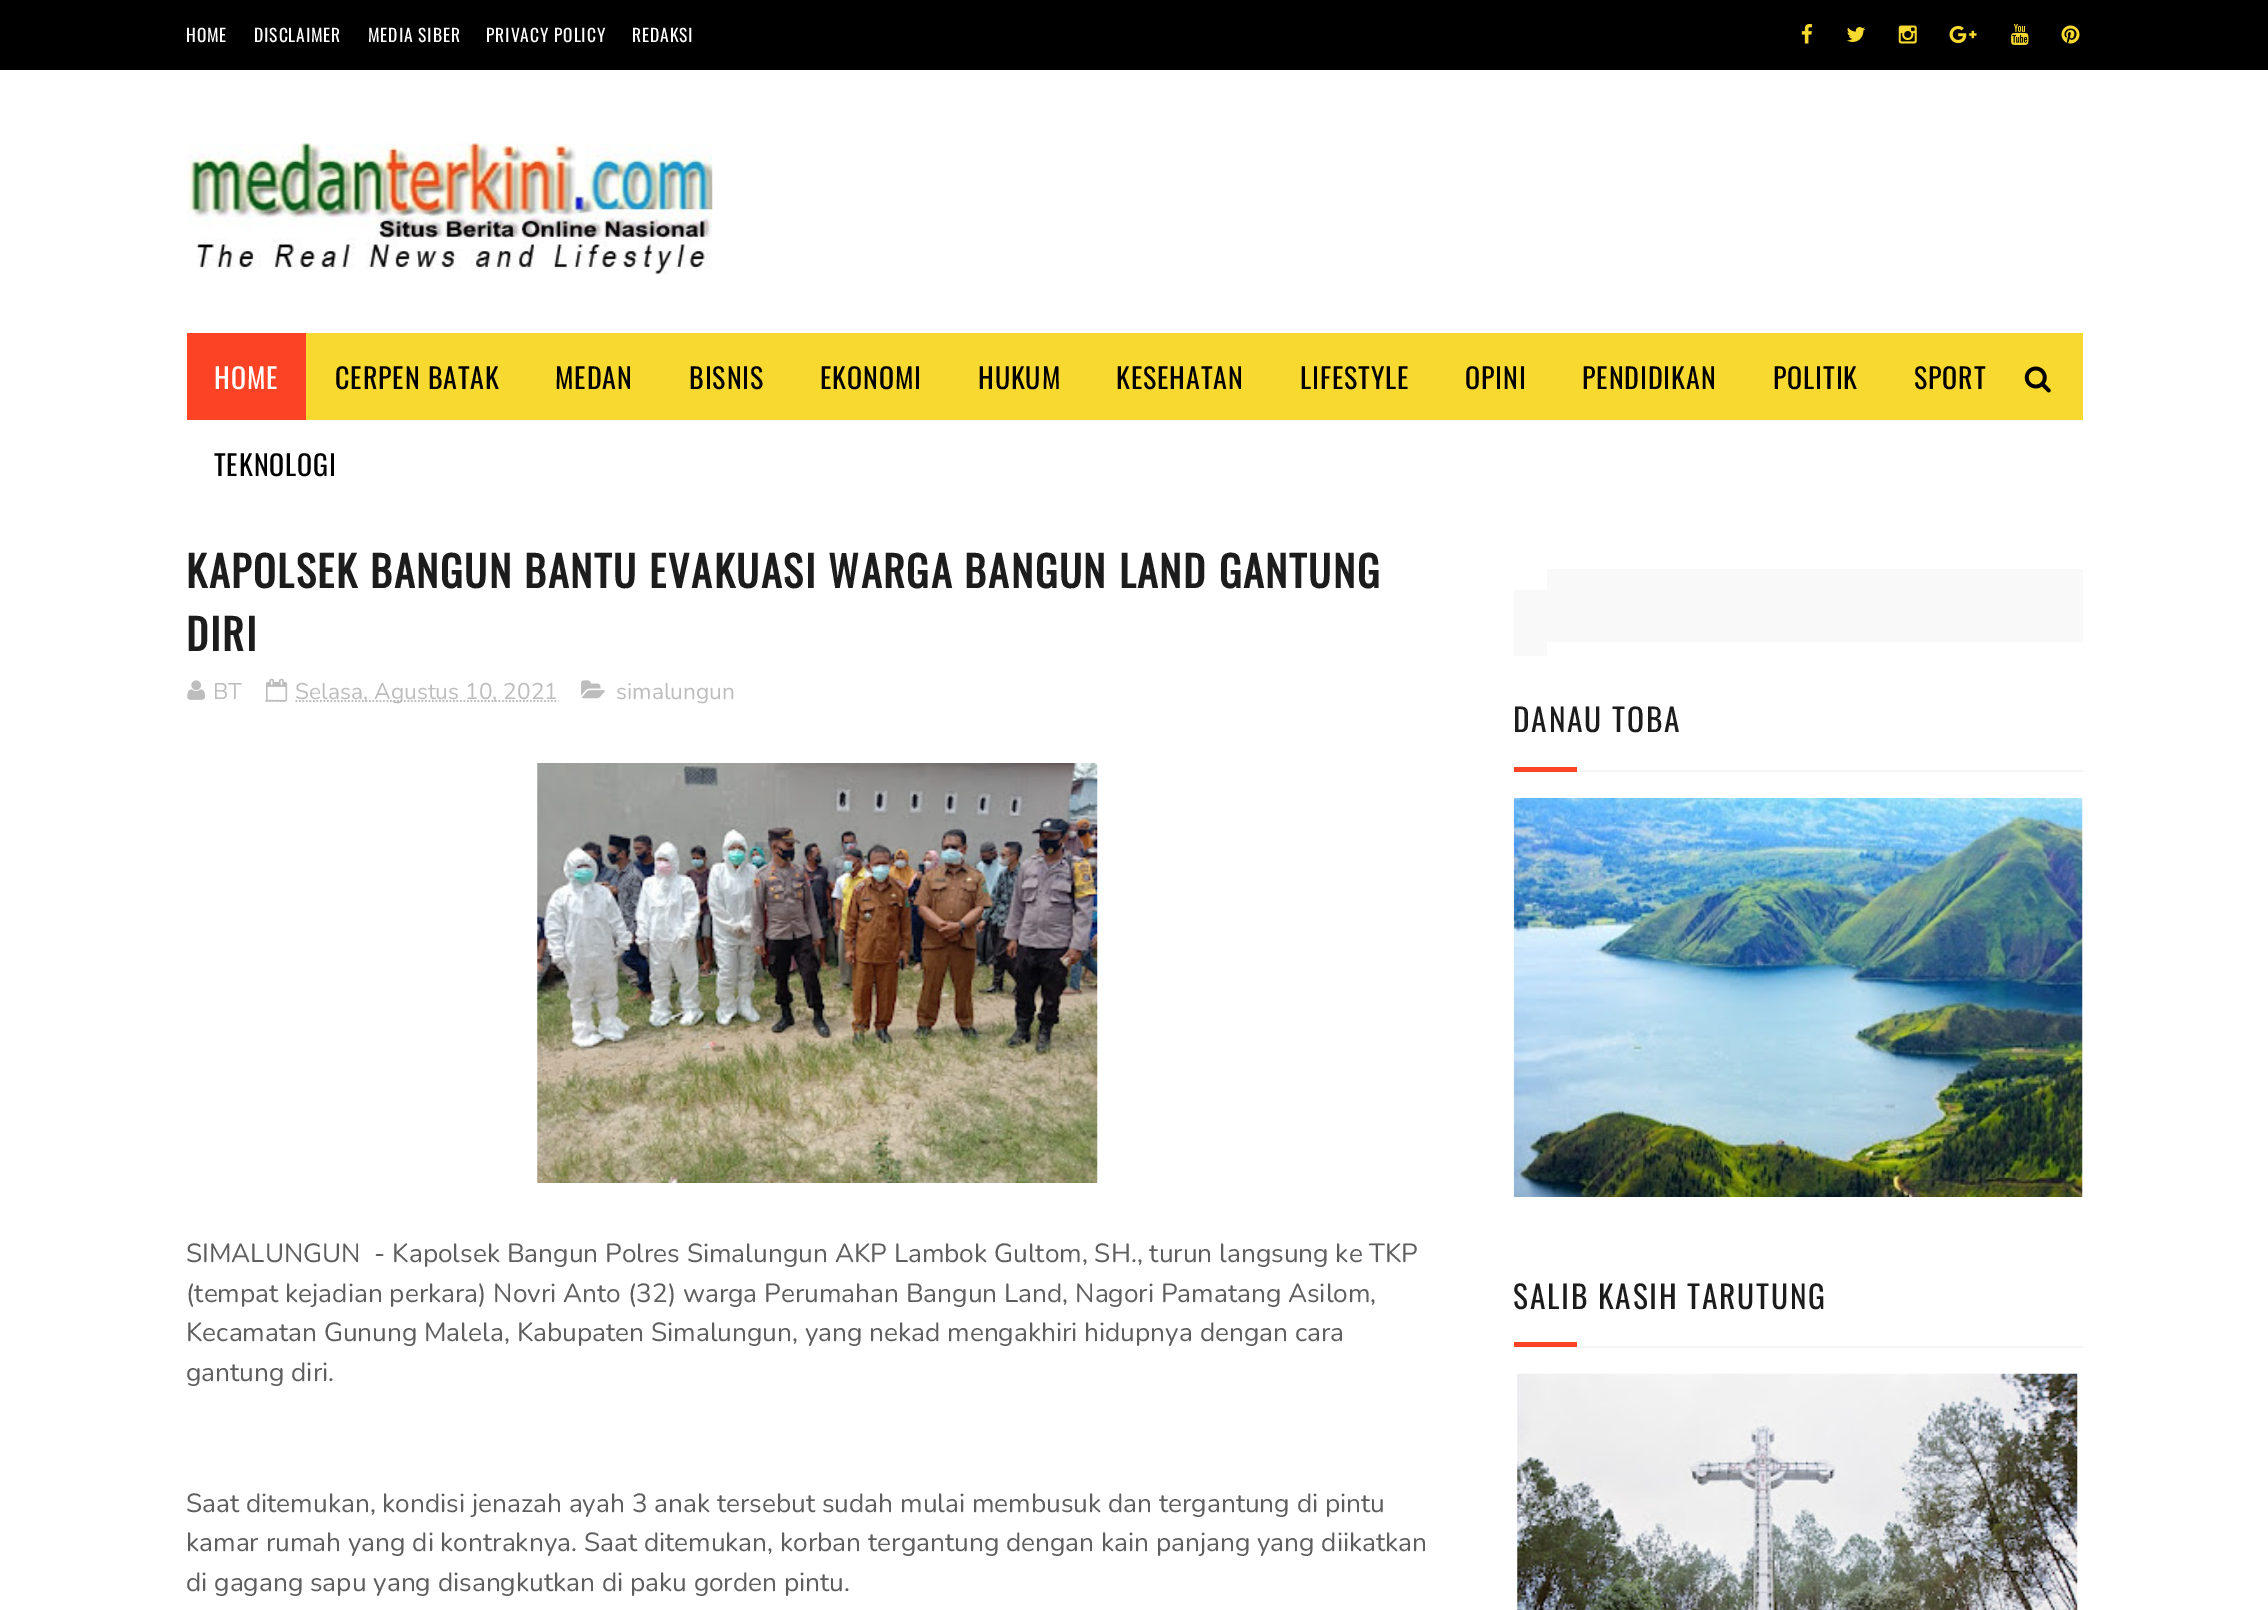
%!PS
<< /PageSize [2268 1610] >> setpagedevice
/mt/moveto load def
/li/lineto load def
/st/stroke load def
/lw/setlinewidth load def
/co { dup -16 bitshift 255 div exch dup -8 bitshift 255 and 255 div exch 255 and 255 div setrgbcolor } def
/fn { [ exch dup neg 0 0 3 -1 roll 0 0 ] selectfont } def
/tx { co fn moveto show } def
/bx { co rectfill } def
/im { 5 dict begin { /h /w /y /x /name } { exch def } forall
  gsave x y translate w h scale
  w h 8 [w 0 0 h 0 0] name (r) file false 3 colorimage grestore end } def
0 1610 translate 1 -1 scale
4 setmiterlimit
0 0 2268 1610 16#FFFFFF bx
0 0 2268 70 16#000000 bx
(media/1.raw) 1801 24 11 20 im
(media/2.raw) 1847 27 19 15 im
(media/3.raw) 1898 25 19 19 im
(media/4.raw) 1949 25 28 19 im
(media/5.raw) 2011 24 18 21 im
(media/6.raw) 2061 25 19 19 im
(media/7.raw) 187 143 526 132 im
306 333 1777 87 16#F8D92F bx
187 333 119 87 16#FD4326 bx
(media/8.raw) 2024 366 27 27 im
(media/9.raw) 187 680 19 20 im
16#BDBDBD co
1.8 lw
[1.75 1.75] 0 setdash
265.5 701 mt 286.5 701 li st
(media/10.raw) 266 678 22 24 im
295.5 701 mt 558.5 701 li st
(media/11.raw) 581 680 24 19 im
(media/12.raw) 537 763 561 420 im
1514 590 33 66 16#F9F9F9 bx
1547 569 536 73 16#F9F9F9 bx
1577 770 506 2 16#F5F5F5 bx
1514 767 63 5 16#FD4326 bx
(media/13.raw) 1513 798 570 399 im
1514 1346 569 2 16#F5F5F5 bx
1514 1342 63 5 16#FD4326 bx
(media/14.raw) 1517 1373 561 237 im
/Oswald-Regular 17.5 fn
16#FFFFFF co
186 42 mt .9 0 (HOME) ashow
254 42 mt .9 0 (DISCLAIMER) ashow
368 42 mt .9 0 (MEDIA SIBER) ashow
486 42 mt .9 0 (PRIVACY POLICY) ashow
632 42 mt .9 0 (REDAKSI) ashow
/Oswald-Regular 28 fn
16#000000 co
335 389 mt .9 0 (CERPEN BATAK) ashow
555 389 mt .9 0 (MEDAN) ashow
689 389 mt .9 0 (BISNIS) ashow
820 389 mt .9 0 (EKONOMI) ashow
978 389 mt .9 0 (HUKUM) ashow
1116 389 mt .9 0 (KESEHATAN) ashow
1300 389 mt .9 0 (LIFESTYLE) ashow
1465 389 mt .9 0 (OPINI) ashow
1582 389 mt .9 0 (PENDIDIKAN) ashow
1773 389 mt .9 0 (POLITIK) ashow
1914 389 mt .9 0 (SPORT) ashow
214 476 mt .9 0 (TEKNOLOGI) ashow
16#FFFFFF co
214 389 mt .9 0 (HOME) ashow
/Oswald-Bold 42 fn
16#1C1C1C co
186 588 mt 1.75 0 (KAPOLSEK BANGUN BANTU EVAKUASI WARGA BANGUN LAND GANTUNG) ashow
186 651 mt 1.75 0 (DIRI) ashow
(BT) 213 699 /Nunito-Regular 22.75 16#BDBDBD tx
(Selasa, Agustus 10, 2021) 295 699 /Nunito-Regular 22.75 16#BDBDBD tx
(simalungun) 616 699 /Nunito-Regular 22.75 16#BDBDBD tx
(SIMALUNGUN  - Kapolsek Bangun Polres Simalungun AKP Lambok Gultom, SH., turun langsung ke TKP) 186 1262 /Nunito-Regular 26.25 16#5E5E5E tx
(\(tempat kejadian perkara\) Novri Anto \(32\) warga Perumahan Bangun Land, Nagori Pamatang Asilom,) 186 1302 /Nunito-Regular 26.25 16#5E5E5E tx
(Kecamatan Gunung Malela, Kabupaten Simalungun, yang nekad mengakhiri hidupnya dengan cara) 186 1341 /Nunito-Regular 26.25 16#5E5E5E tx
(gantung diri.) 186 1381 /Nunito-Regular 26.25 16#5E5E5E tx
(Saat ditemukan, kondisi jenazah ayah 3 anak tersebut sudah mulai membusuk dan tergantung di pintu) 186 1512 /Nunito-Regular 26.25 16#5E5E5E tx
(kamar rumah yang di kontraknya. Saat ditemukan, korban tergantung dengan kain panjang yang diikatkan) 186 1551 /Nunito-Regular 26.25 16#5E5E5E tx
(di gagang sapu yang disangkutkan di paku gorden pintu.) 186 1591 /Nunito-Regular 26.25 16#5E5E5E tx
/Oswald-Regular 31.5 fn
16#1C1C1C co
1513 732 mt 1.75 0 (DANAU TOBA) ashow
1513 1309 mt 1.75 0 (SALIB KASIH TARUTUNG) ashow
showpage
